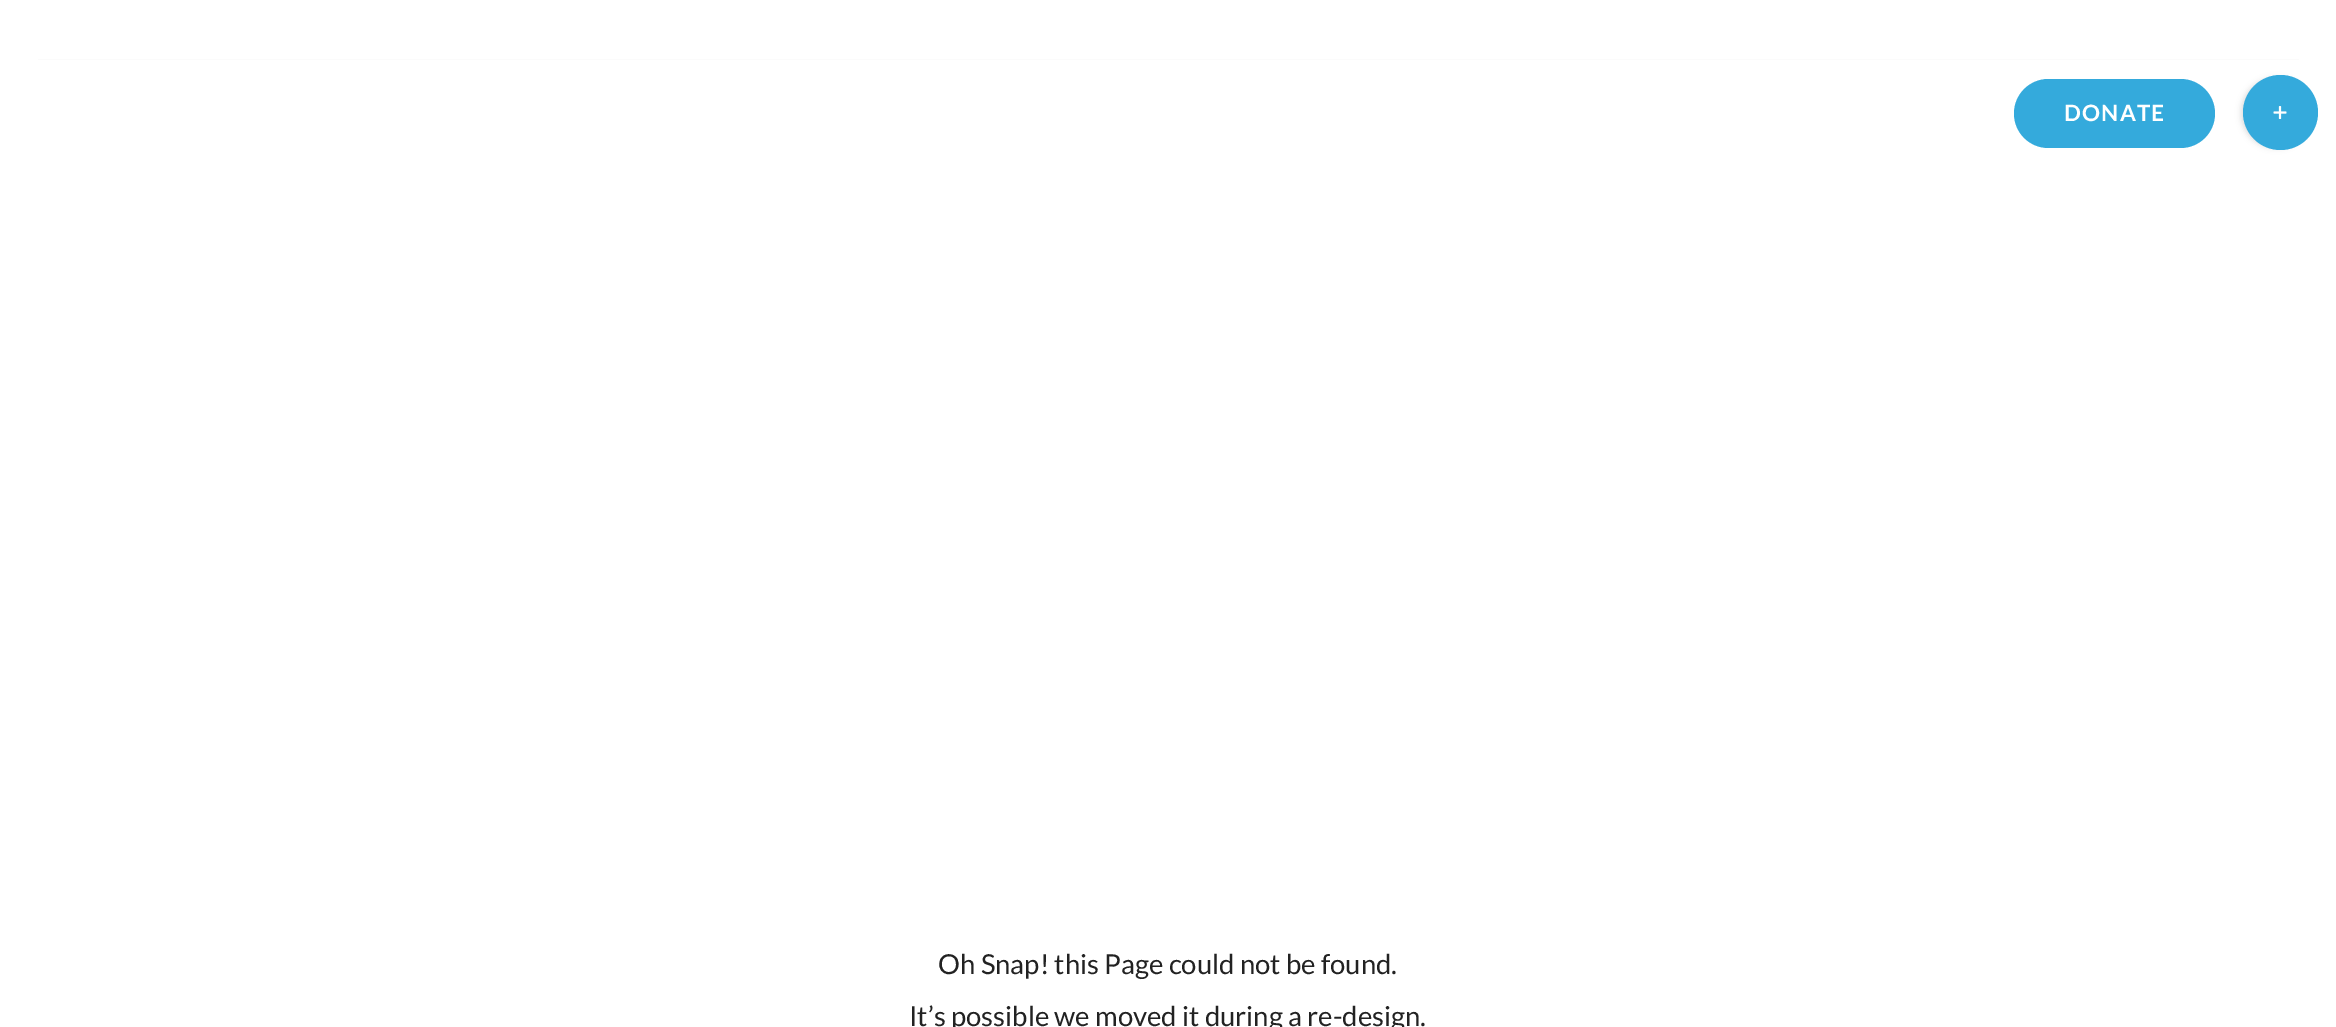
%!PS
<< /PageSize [2336 1027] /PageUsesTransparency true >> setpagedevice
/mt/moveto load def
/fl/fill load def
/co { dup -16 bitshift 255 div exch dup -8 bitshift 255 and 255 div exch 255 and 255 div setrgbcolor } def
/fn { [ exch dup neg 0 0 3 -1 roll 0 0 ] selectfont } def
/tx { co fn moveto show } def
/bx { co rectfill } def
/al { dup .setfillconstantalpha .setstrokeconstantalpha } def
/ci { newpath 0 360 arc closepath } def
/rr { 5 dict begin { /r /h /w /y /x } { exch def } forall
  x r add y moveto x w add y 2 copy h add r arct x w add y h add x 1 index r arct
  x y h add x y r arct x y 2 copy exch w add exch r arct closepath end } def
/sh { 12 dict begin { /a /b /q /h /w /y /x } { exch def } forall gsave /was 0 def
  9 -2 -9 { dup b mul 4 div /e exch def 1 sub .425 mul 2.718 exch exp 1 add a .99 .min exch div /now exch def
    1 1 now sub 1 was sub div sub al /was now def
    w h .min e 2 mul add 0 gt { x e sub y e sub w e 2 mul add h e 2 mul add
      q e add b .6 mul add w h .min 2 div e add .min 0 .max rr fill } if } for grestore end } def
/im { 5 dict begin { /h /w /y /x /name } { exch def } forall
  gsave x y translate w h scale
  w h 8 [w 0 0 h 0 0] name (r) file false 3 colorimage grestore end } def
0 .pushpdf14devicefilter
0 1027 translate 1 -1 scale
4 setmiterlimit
0 0 2336 1027 16#FFFFFF bx
38 59 2261 1 16#FBFBFB bx
16#34AADC co
2014 79 201 69 34.5 rr fl
16#000000 co
2241 78 70 70 35 3 .14 sh
16#34AADC co
2280.5 112.5 37.5 ci fl
(media/1.raw) 2273 106 14 13 im
/Lato-Bold 22.5 fn
16#FFFFFF co
2064 121 mt 1.25 0 (DONATE) ashow
(Oh Snap! this Page could not be found.) 938 974 /Lato-Regular 27.5 16#222222 tx
(It’s possible we moved it during a re-design.) 909 1026 /Lato-Regular 27.5 16#222222 tx
.poppdf14devicefilter showpage
